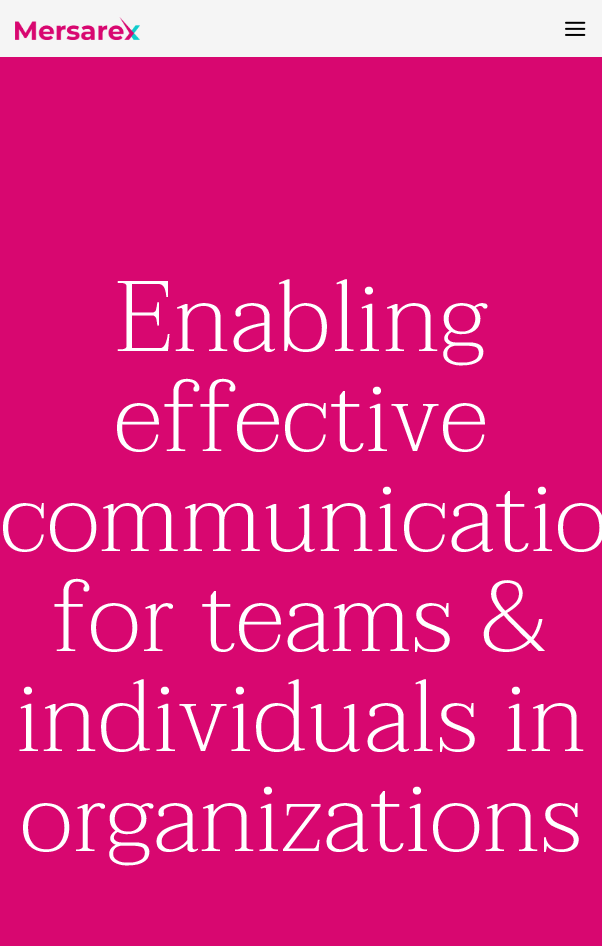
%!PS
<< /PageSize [602 946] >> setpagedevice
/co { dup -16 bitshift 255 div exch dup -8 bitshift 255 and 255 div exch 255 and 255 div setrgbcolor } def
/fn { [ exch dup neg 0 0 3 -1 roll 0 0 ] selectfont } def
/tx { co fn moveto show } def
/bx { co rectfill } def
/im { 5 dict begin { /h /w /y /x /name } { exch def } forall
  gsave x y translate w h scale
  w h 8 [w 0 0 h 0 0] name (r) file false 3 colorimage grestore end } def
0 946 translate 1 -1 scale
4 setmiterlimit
0 0 602 946 16#F5F5F5 bx
(media/1.raw) 15 17 125 23 im
(media/2.raw) 565 21 21 15 im
0 57 602 889 16#D80770 bx
(Enabling) 116 351 /Taviraj-ExtraLight 100 16#FFFFFF tx
(effective) 114 451 /Taviraj-ExtraLight 100 16#FFFFFF tx
(communicatio) 0 551 /Taviraj-ExtraLight 100 16#FFFFFF tx
(for teams &) 52 651 /Taviraj-ExtraLight 100 16#FFFFFF tx
(individuals in) 16 751 /Taviraj-ExtraLight 100 16#FFFFFF tx
(organizations) 20 851 /Taviraj-ExtraLight 100 16#FFFFFF tx
showpage
